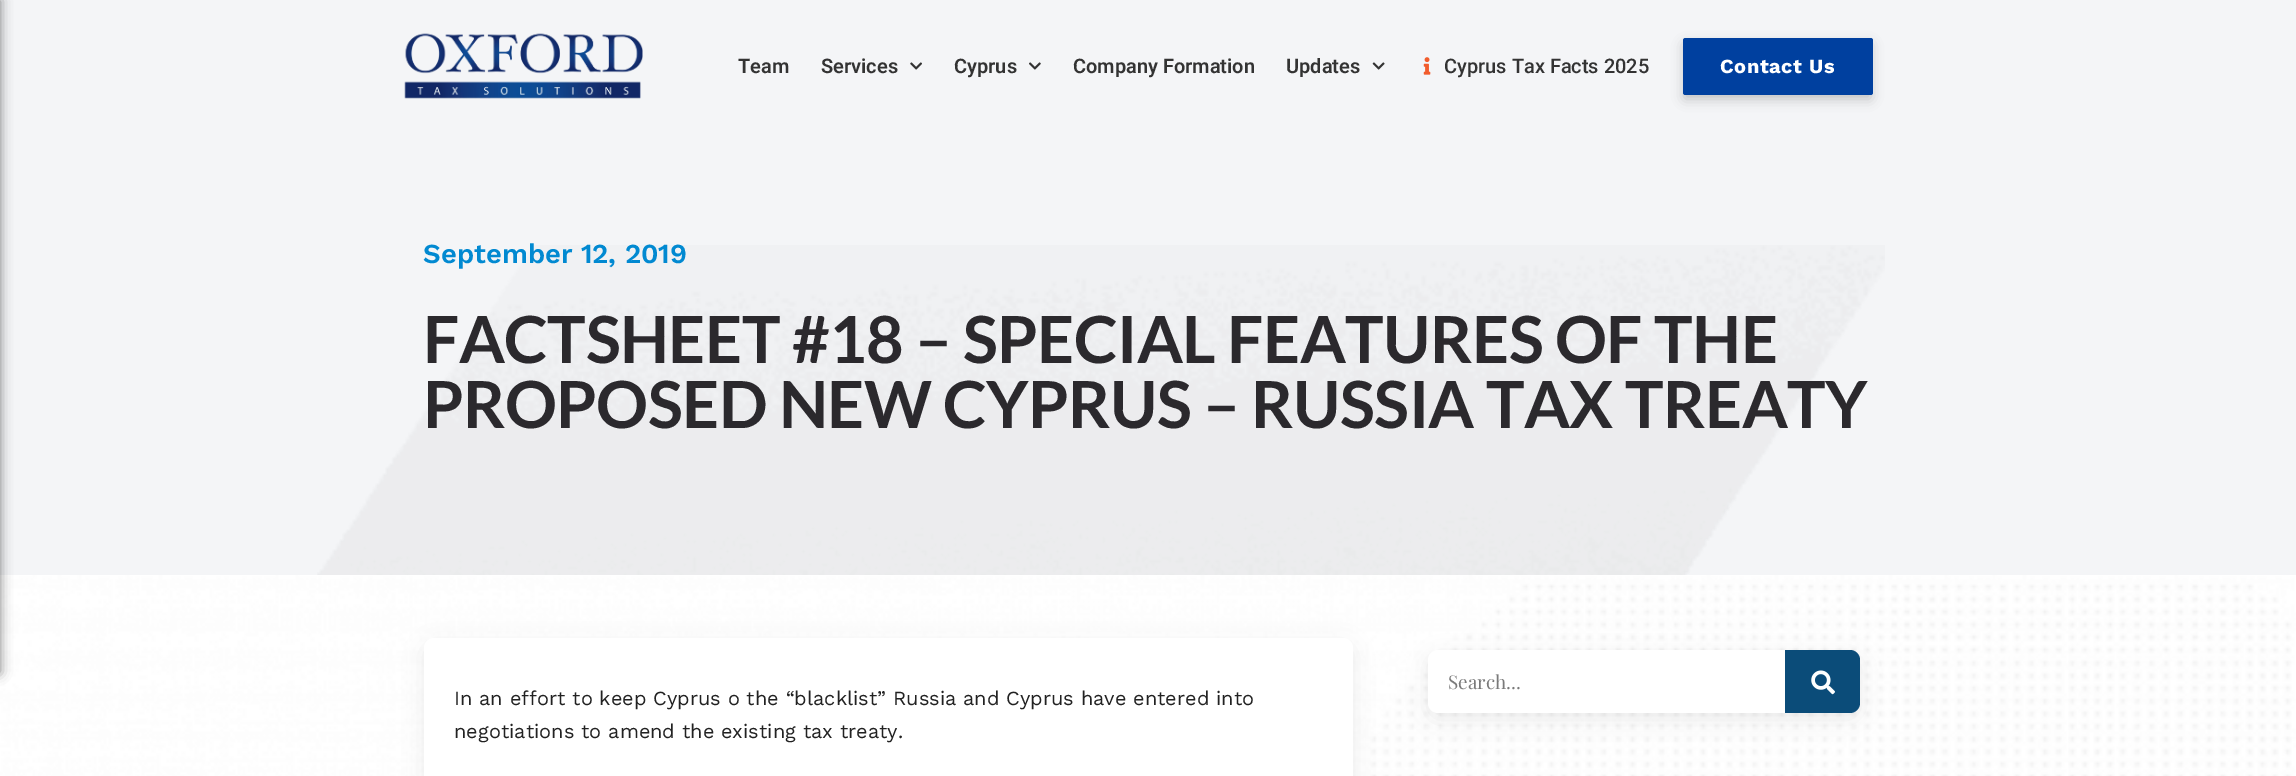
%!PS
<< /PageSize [2296 776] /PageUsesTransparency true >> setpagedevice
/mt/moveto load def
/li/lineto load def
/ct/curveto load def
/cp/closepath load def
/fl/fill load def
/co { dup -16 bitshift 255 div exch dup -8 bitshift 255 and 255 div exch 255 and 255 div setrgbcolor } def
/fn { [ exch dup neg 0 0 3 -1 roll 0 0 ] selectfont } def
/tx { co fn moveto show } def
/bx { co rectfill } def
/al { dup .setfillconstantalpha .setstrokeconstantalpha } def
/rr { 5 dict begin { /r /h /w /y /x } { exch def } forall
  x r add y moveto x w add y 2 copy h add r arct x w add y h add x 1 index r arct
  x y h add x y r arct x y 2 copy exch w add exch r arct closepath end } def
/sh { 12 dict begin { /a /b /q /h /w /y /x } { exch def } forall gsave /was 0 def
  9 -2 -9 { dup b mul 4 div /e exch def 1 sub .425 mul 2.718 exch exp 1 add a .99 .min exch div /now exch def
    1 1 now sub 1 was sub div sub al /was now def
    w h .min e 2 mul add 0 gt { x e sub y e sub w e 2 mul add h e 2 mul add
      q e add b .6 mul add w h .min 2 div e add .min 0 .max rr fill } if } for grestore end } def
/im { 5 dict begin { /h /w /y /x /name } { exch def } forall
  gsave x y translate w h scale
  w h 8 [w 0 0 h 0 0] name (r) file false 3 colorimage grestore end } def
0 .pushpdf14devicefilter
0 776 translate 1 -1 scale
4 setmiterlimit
0 0 2296 776 16#F4F5F7 bx
(media/7.raw) 0 575 2296 201 im
16#000000 co
-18 0 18 673 0 6 .5 sh
(media/1.raw) 404 33 239 66 im
(media/2.raw) 910 62 12 8 im
(media/3.raw) 1029 62 12 8 im
(media/4.raw) 1372 62 13 8 im
(media/5.raw) 1423 57 8 18 im
1684 44 187 55 1 6 .22 sh
16#00409F co
1683 38 190 57 2.5 rr fl
(media/6.raw) 317 245 1568 330 im
16#000000 co
1428 656 432 63 10 10 .07 sh
16#FFFFFF co
1428 650 432 63 10 rr fl
16#0B4C79 co
1785 650 mt 1850 650 li 1855.5 650 1860 654.5 1860 660 ct 1860 703 li 1860 708.5 1855.5 713 1850 713 ct 1785 713 li cp fl
(media/8.raw) 1811 670 24 25 im
16#000000 co
424 644 929 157 10 10 .07 sh
16#FFFFFF co
424 638 929 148 10 rr fl
(Team) 738 73 /Roboto-SemiBold 20 16#333333 tx
(Services) 821 73 /Roboto-SemiBold 20 16#333333 tx
(Cyprus) 954 73 /Roboto-SemiBold 20 16#333333 tx
(Company Formation) 1073 73 /Roboto-SemiBold 20 16#333333 tx
(Updates) 1286 73 /Roboto-SemiBold 20 16#333333 tx
(Cyprus Tax Facts 2025) 1444 73 /Roboto-Medium 20 16#333333 tx
/WorkSans-Bold 20 fn
16#FFFFFF co
1720 73 mt .6 0 (Contact Us) ashow
(September 12, 2019) 423 263 /WorkSans-SemiBold 27.5 16#0189D1 tx
/Lato-Bold 65 fn
16#2B292D co
423 363 mt -.6 0 (FACTSHEET #18 – SPECIAL FEATURES OF THE) ashow
423 428 mt -.6 0 (PROPOSED NEW CYPRUS – RUSSIA TAX TREATY) ashow
(Search...) 1448 689 /PlayfairDisplay-Regular 19 16#7A7A7A tx
(In an effort to keep Cyprus o the “blacklist” Russia and Cyprus have entered into) 454 705 /WorkSans-Regular 20 16#222222 tx
(negotiations to amend the existing tax treaty.) 454 738 /WorkSans-Regular 20 16#222222 tx
.poppdf14devicefilter showpage
